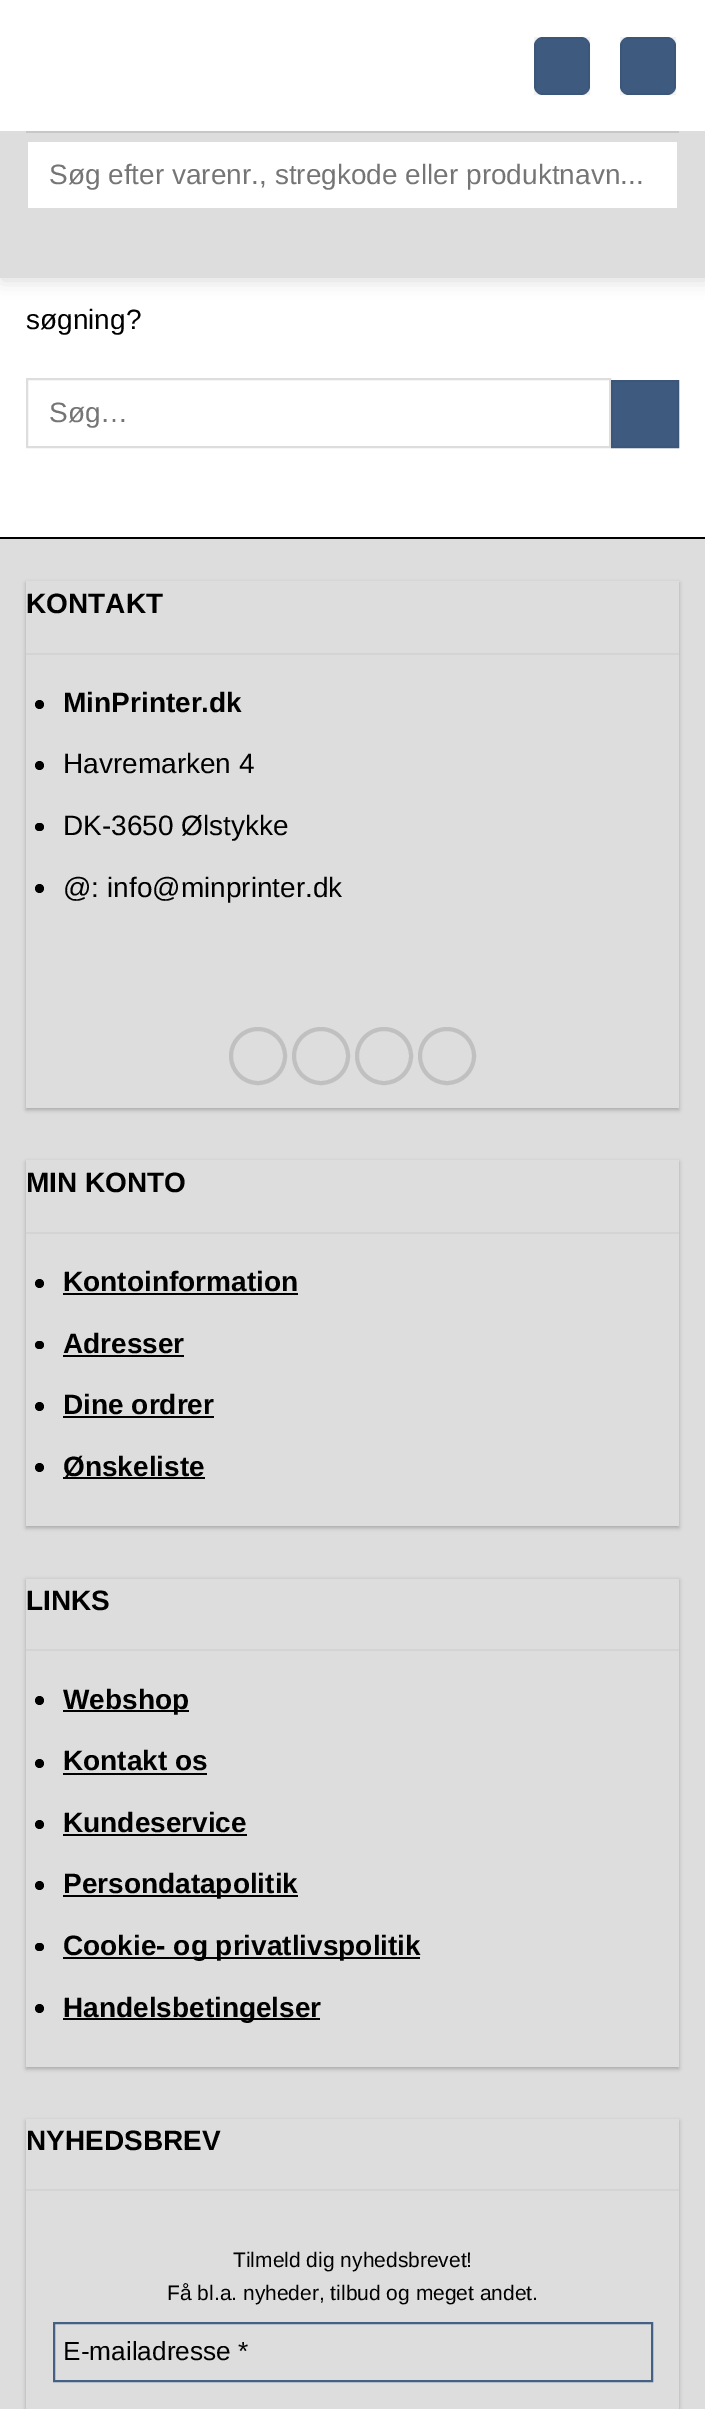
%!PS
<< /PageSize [705 2409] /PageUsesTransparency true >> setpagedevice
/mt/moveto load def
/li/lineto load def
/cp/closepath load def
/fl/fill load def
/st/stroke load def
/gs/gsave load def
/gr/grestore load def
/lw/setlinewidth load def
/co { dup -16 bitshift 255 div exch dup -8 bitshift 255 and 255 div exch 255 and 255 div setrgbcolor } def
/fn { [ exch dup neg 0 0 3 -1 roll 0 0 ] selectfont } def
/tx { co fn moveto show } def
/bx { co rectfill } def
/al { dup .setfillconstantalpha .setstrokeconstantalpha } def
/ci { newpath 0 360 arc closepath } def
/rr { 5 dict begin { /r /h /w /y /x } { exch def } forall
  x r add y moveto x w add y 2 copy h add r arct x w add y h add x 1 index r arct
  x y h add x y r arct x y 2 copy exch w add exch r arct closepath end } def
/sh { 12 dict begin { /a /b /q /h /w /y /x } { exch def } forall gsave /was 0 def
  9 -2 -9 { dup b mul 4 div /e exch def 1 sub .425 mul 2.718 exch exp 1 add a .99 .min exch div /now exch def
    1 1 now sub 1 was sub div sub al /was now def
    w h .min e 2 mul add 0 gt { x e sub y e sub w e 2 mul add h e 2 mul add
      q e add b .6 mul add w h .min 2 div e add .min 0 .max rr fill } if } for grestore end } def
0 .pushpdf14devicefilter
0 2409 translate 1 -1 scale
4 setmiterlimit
0 0 705 2409 16#FFFFFF bx
16#000000 co
2 2 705 278 0 9 .15 sh
0 0 705 131 16#FFFFFF bx
16#3E5B7F co
534 37 56 58 9 rr fl
0.05 al
16#000000 co
2 lw
535 38 54 56 rectstroke
1 al
16#3E5B7F co
620 37 56 58 9 rr fl
0.05 al
16#000000 co
621 38 54 56 rectstroke
1 al
0 131 705 147 16#DDDDDD bx
26 131 653 2 16#C7C7C7 bx
28 142 649 66 16#FFFFFF bx
16#DDDDDD co
27 379 583 68 rectstroke
16#3E5B7F co
612 381 mt 678 381 li 678 447 li 612 447 li cp gs fl gr
16#3B5679 co
st
0 539 705 1870 16#DDDDDD bx
0 537 705 2 16#000000 bx
gs
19 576 mt 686 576 li 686 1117 li 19 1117 li cp 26 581 mt 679 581 li 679 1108 li 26 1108 li cp eoclip newpath
26 583 653 527 0 2 .24 sh
gr
0.1 al
26 653 653 2 16#808080 bx
1 al
16#000000 co
39.5 704.5 4.5 ci fl
39.5 765.5 4.5 ci fl
35 823 9 8 4 rr fl
39.5 888.5 4.5 ci fl
16#C0C0C0 co
4 lw
258 1056 27 ci st
321 1056 27 ci st
384 1056 27 ci st
447 1056 27 ci st
gs
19 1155 mt 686 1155 li 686 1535 li 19 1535 li cp 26 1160 mt 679 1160 li 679 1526 li 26 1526 li cp eoclip newpath
16#000000 co
26 1162 653 366 0 2 .24 sh
gr
0.1 al
26 1232 653 2 16#808080 bx
1 al
16#000000 co
39.5 1283.5 4.5 ci fl
63 1293 235 2 16#000000 bx
35 1341 9 8 4 rr fl
63 1355 121 2 16#000000 bx
39.5 1406.5 4.5 ci fl
63 1416 151 2 16#000000 bx
39.5 1467.5 4.5 ci fl
63 1477 142 2 16#000000 bx
gs
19 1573 mt 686 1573 li 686 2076 li 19 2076 li cp 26 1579 mt 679 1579 li 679 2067 li 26 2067 li cp eoclip newpath
26 1580 653 489 0 2 .24 sh
gr
0.1 al
26 1649 653 2 16#808080 bx
1 al
16#000000 co
39.5 1700.5 4.5 ci fl
63 1710 126 2 16#000000 bx
39.5 1763.5 4.5 ci fl
63 1773 144 2 16#000000 bx
39.5 1824.5 4.5 ci fl
63 1834 184 2 16#000000 bx
39.5 1885.5 4.5 ci fl
63 1895 235 2 16#000000 bx
35 1943 9 8 4 rr fl
63 1957 357 2 16#000000 bx
39.5 2008.5 4.5 ci fl
63 2018 257 2 16#000000 bx
gs
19 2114 mt 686 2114 li 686 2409 li 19 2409 li cp 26 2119 mt 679 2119 li 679 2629 li 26 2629 li cp eoclip newpath
26 2121 653 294 0 2 .24 sh
gr
0.1 al
26 2189 653 2 16#808080 bx
1 al
16#446084 co
2 lw
54 2323 598 58 rectstroke
(Søg efter varenr., stregkode eller produktnavn...) 49 184 /LiberationSans-Regular 28 16#757575 tx
(søgning?) 26 329 /LiberationSans-Regular 28 16#000000 tx
(Søg…) 49 422 /LiberationSans-Regular 28 16#757575 tx
(KONTAKT) 26 613 /LiberationSans-Bold 28 16#000000 tx
(MinPrinter.dk) 63 712 /LiberationSans-Bold 28 16#000000 tx
(Havremarken 4) 63 773 /LiberationSans-Regular 28 16#000000 tx
(DK-3650 Ølstykke) 63 835 /LiberationSans-Regular 28 16#000000 tx
(@: info@minprinter.dk) 63 897 /LiberationSans-Regular 28 16#000000 tx
(MIN KONTO) 26 1192 /LiberationSans-Bold 28 16#000000 tx
(Kontoinformation) 63 1291 /LiberationSans-Bold 28 16#000000 tx
(Adresser) 63 1353 /LiberationSans-Bold 28 16#000000 tx
(Dine ordrer) 63 1414 /LiberationSans-Bold 28 16#000000 tx
(Ønskeliste) 63 1476 /LiberationSans-Bold 28 16#000000 tx
(LINKS) 26 1610 /LiberationSans-Bold 28 16#000000 tx
(Webshop) 63 1709 /LiberationSans-Bold 28 16#000000 tx
(Kontakt os) 63 1770 /LiberationSans-Bold 28 16#000000 tx
(Kundeservice) 63 1832 /LiberationSans-Bold 28 16#000000 tx
(Persondatapolitik) 63 1893 /LiberationSans-Bold 28 16#000000 tx
(Cookie- og privatlivspolitik) 63 1955 /LiberationSans-Bold 28 16#000000 tx
(Handelsbetingelser) 63 2017 /LiberationSans-Bold 28 16#000000 tx
(NYHEDSBREV) 26 2150 /LiberationSans-Bold 28 16#000000 tx
(Tilmeld dig nyhedsbrevet!) 233 2267 /LiberationSans-Regular 21 16#000000 tx
(Få bl.a. nyheder, tilbud og meget andet.) 167 2300 /LiberationSans-Regular 21 16#000000 tx
(E-mailadresse *) 63 2360 /LiberationSans-Regular 26.25 16#000000 tx
.poppdf14devicefilter showpage
